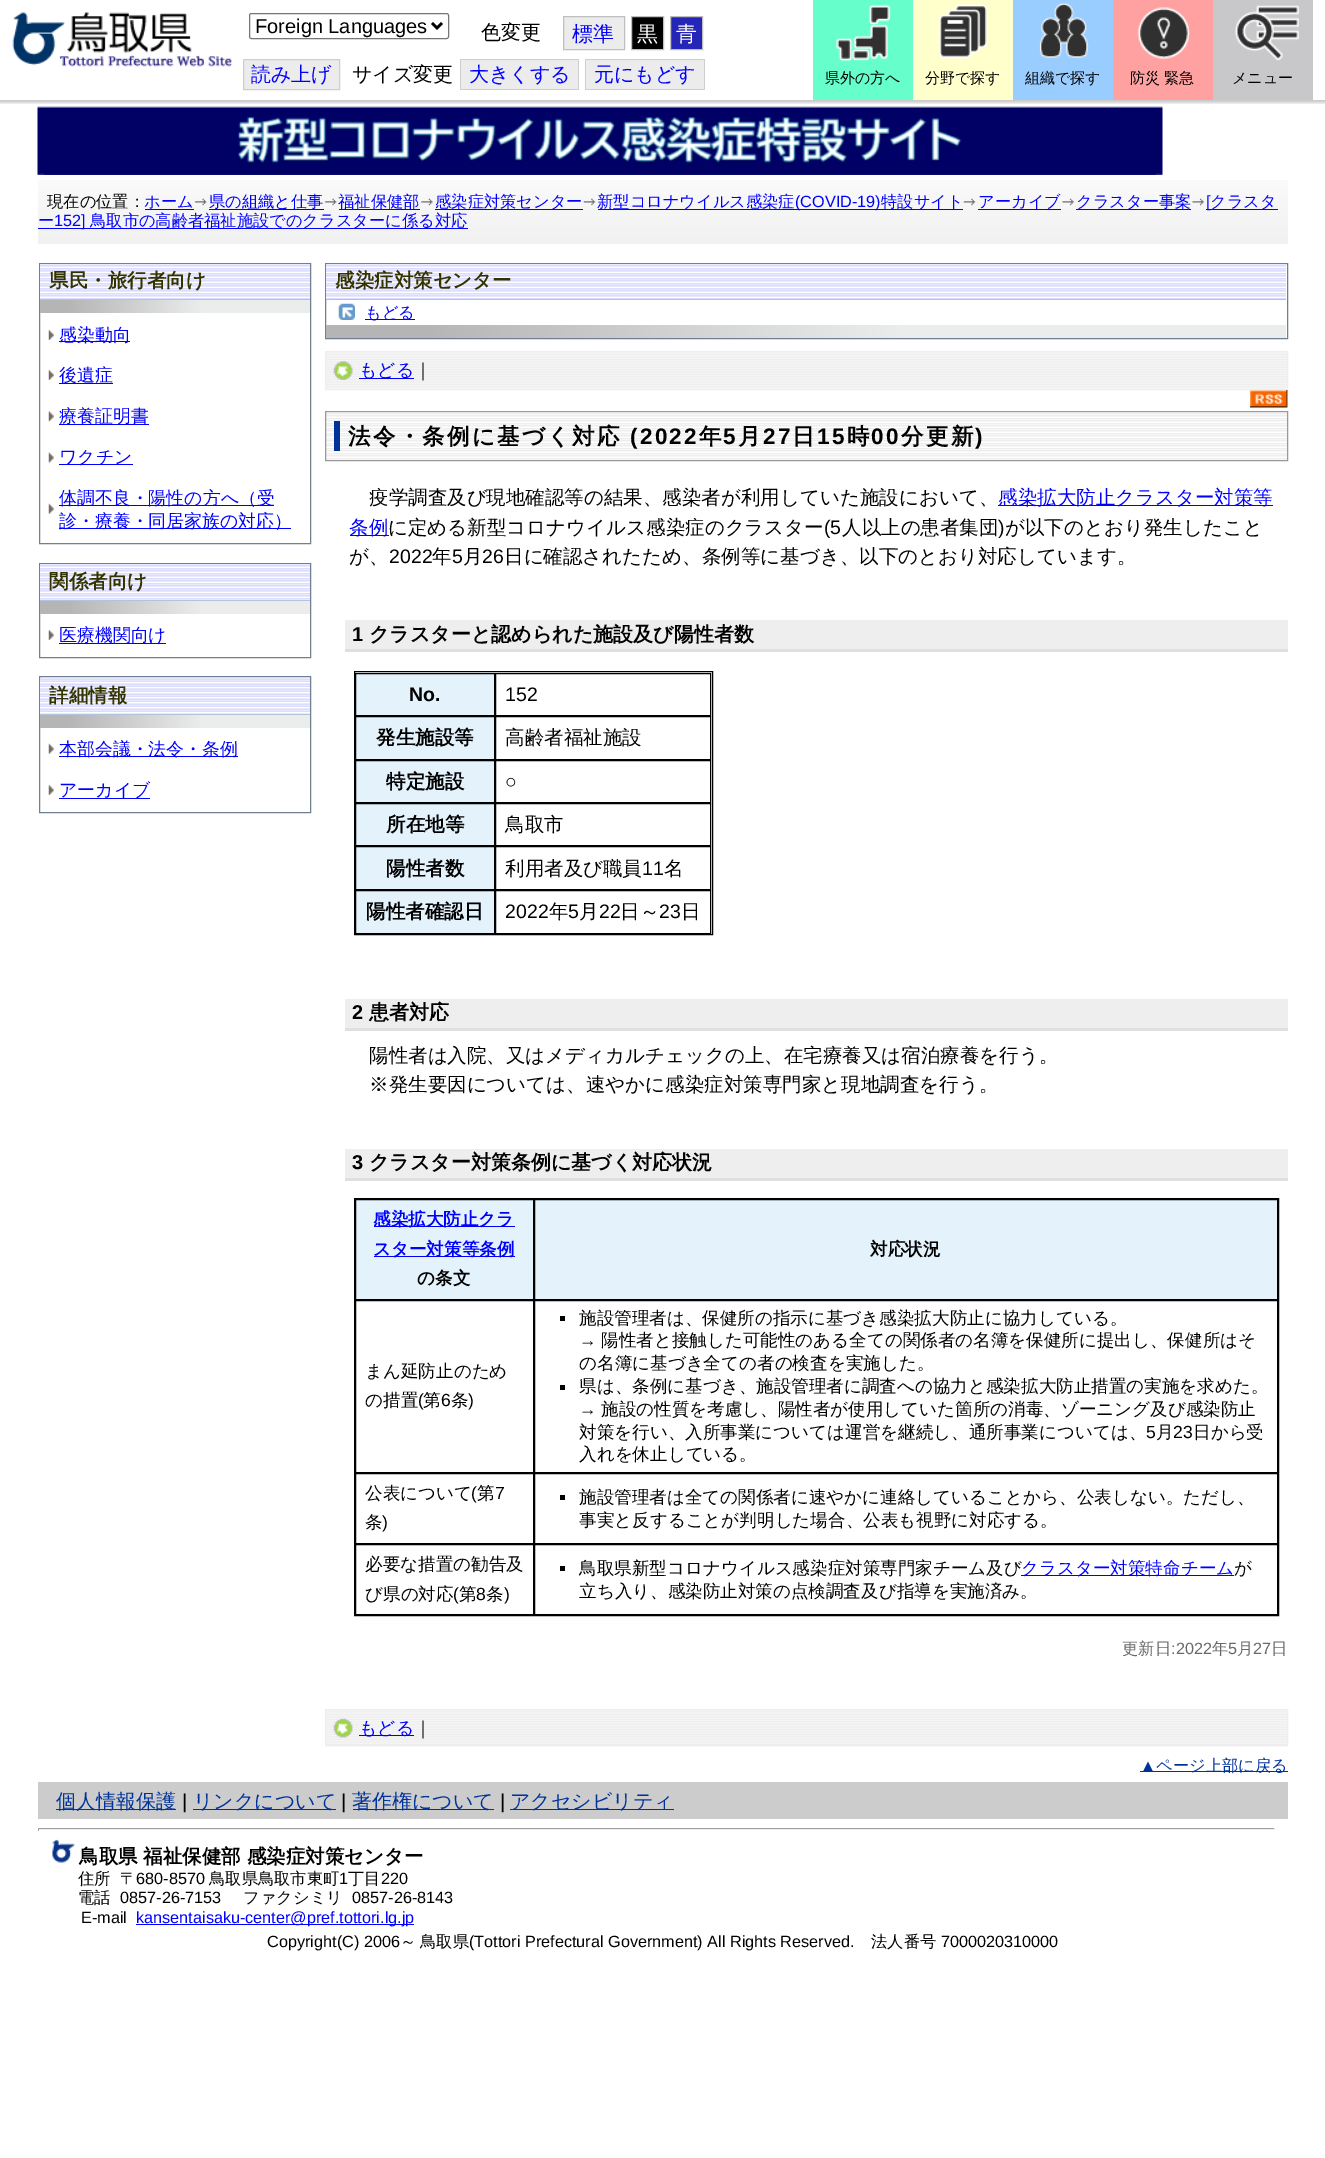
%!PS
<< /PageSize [1325 2158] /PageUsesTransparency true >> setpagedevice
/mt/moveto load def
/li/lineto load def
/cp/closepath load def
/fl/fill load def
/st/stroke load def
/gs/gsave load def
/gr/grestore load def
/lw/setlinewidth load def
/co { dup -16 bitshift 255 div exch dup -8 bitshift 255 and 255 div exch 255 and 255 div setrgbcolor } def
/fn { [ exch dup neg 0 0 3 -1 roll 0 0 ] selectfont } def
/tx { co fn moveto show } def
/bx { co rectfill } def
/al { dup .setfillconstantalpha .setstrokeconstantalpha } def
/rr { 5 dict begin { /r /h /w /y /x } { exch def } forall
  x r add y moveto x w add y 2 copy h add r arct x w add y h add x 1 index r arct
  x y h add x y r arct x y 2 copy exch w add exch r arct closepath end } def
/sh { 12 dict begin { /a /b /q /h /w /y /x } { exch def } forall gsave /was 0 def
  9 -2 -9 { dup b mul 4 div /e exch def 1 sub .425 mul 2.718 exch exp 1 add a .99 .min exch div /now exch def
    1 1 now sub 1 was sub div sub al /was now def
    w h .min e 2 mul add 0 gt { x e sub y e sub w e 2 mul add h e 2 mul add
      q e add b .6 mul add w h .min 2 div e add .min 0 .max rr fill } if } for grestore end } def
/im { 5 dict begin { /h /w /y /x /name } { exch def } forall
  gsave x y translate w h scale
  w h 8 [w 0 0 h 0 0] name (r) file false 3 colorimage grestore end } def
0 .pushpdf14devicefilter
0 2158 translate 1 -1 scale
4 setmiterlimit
0 0 1325 2158 16#FFFFFF bx
(media/7.raw) 37 106 1126 69 im
gs
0 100 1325 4 rectclip
16#000000 co
-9 1 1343 100 0 3 .1 sh
-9 1 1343 100 0 3 .1 sh
-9 1 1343 100 0 3 .1 sh
-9 1 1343 100 0 3 .1 sh
gr
(media/1.raw) 12 12 220 55 im
16#767676 co
249.5 13.5 199 25 2 rr st
16#000000 co
2.5 lw
432 23 mt 437 28 li 442 23 li st
16#ECECEC co
563.5 16.5 mt 624.5 16.5 li 624.5 49.5 li 563.5 49.5 li cp gs fl gr
16#BFBFBF co
1 lw
st
16#000000 co
631.5 16.5 mt 663.5 16.5 li 663.5 49.5 li 631.5 49.5 li cp gs fl gr
16#BFBFBF co
st
16#2525B8 co
670.5 16.5 mt 702.5 16.5 li 702.5 49.5 li 670.5 49.5 li cp gs fl gr
16#BFBFBF co
st
16#ECECEC co
243.5 59.5 mt 339.5 59.5 li 339.5 89.5 li 243.5 89.5 li cp gs fl gr
16#CECECE co
st
461 60 117 29 16#ECECEC bx
460 59 119 1 16#CECECE bx
460 89 29 1 16#CECECE bx
460 59 1 31 16#CECECE bx
578 59 1 31 16#CECECE bx
489 89 90 1 16#CECECE bx
586 60 118 29 16#ECECEC bx
585 59 120 1 16#CECECE bx
585 89 29 1 16#CECECE bx
585 59 1 31 16#CECECE bx
704 59 1 31 16#CECECE bx
614 89 91 1 16#CECECE bx
813 0 100 100 16#66FFCC bx
(media/2.raw) 836 4 55 58 im
913 0 100 100 16#FFFFCC bx
(media/3.raw) 938 4 50 55 im
1013 0 100 100 16#99CCFF bx
(media/4.raw) 1039 2 50 56 im
1113 0 100 100 16#FFA1A1 bx
(media/5.raw) 1137 7 53 52 im
1213 0 100 100 16#C8C8CB bx
(media/6.raw) 1235 5 64 56 im
gs 38 180 mt 1288 180 li 1288 244 li 38 244 li cp clip newpath
<< /ShadingType 2 /ColorSpace /DeviceRGB /Coords [663 180 663 244] /Extend [true true] /Function << /FunctionType 2 /Domain [0 1] /C0 [.98 .98 .98] /C1 [.945 .945 .945] /N 1 >> >> shfill gr
145 209 49 1 16#0000FF bx
(media/8.raw) 194 198 13 8 im
209 209 115 1 16#0000FF bx
(media/8.raw) 324 198 13 8 im
339 209 81 1 16#0000FF bx
(media/9.raw) 421 198 12 8 im
435 209 148 1 16#0000FF bx
(media/10.raw) 583 198 13 8 im
598 209 365 1 16#0000FF bx
(media/10.raw) 963 198 13 8 im
978 209 83 1 16#0000FF bx
(media/11.raw) 1062 198 12 8 im
1076 209 115 1 16#0000FF bx
(media/11.raw) 1192 198 12 8 im
1206 209 72 1 16#0000FF bx
38 228 430 1 16#0000FF bx
16#708090 co
39.5 263.5 271 280 rectstroke
(media/12.raw) 40 264 270 35 im
40 299 270 1 16#B0C4DE bx
gs 40 300 mt 310 300 li 310 313 li 40 313 li cp clip newpath
<< /ShadingType 2 /ColorSpace /DeviceRGB /Coords [40 306 310 306] /Extend [true true] /Function << /FunctionType 3 /Domain [0 1] /Functions [<< /FunctionType 2 /Domain [0 1] /C0 [.71 .71 .71] /C1 [.71 .71 .71] /N 1 >> << /FunctionType 2 /Domain [0 1] /C0 [.71 .71 .71] /C1 [.922 .925 .925] /N 1 >> << /FunctionType 2 /Domain [0 1] /C0 [.922 .925 .925] /C1 [.922 .925 .925] /N 1 >>] /Bounds [.1 .6] /Encode [0 1 0 1 0 1] >> >> shfill gr
(media/13.raw) 48 330 6 10 im
59 341 71 1 16#0000FF bx
(media/13.raw) 48 370 6 10 im
59 383 54 1 16#0000FF bx
(media/14.raw) 48 411 6 11 im
59 424 90 1 16#0000FF bx
(media/15.raw) 48 452 6 11 im
59 464 74 1 16#0000FF bx
(media/16.raw) 48 503 6 11 im
59 505 215 1 16#0000FF bx
59 528 232 1 16#0000FF bx
16#708090 co
39.5 563.5 271 94 rectstroke
(media/17.raw) 40 564 270 36 im
40 600 270 1 16#B0C4DE bx
gs 40 601 mt 310 601 li 310 614 li 40 614 li cp clip newpath
<< /ShadingType 2 /ColorSpace /DeviceRGB /Coords [40 608 310 608] /Extend [true true] /Function << /FunctionType 3 /Domain [0 1] /Functions [<< /FunctionType 2 /Domain [0 1] /C0 [.71 .71 .71] /C1 [.71 .71 .71] /N 1 >> << /FunctionType 2 /Domain [0 1] /C0 [.71 .71 .71] /C1 [.922 .925 .925] /N 1 >> << /FunctionType 2 /Domain [0 1] /C0 [.922 .925 .925] /C1 [.922 .925 .925] /N 1 >>] /Bounds [.1 .6] /Encode [0 1 0 1 0 1] >> >> shfill gr
(media/13.raw) 48 630 6 10 im
59 643 107 1 16#0000FF bx
16#708090 co
39.5 676.5 271 136 rectstroke
(media/18.raw) 40 678 270 36 im
40 714 270 1 16#B0C4DE bx
gs 40 715 mt 310 715 li 310 728 li 40 728 li cp clip newpath
<< /ShadingType 2 /ColorSpace /DeviceRGB /Coords [40 721 310 721] /Extend [true true] /Function << /FunctionType 3 /Domain [0 1] /Functions [<< /FunctionType 2 /Domain [0 1] /C0 [.71 .71 .71] /C1 [.71 .71 .71] /N 1 >> << /FunctionType 2 /Domain [0 1] /C0 [.71 .71 .71] /C1 [.922 .925 .925] /N 1 >> << /FunctionType 2 /Domain [0 1] /C0 [.922 .925 .925] /C1 [.922 .925 .925] /N 1 >>] /Bounds [.1 .6] /Encode [0 1 0 1 0 1] >> >> shfill gr
(media/16.raw) 48 743 6 11 im
59 756 179 1 16#0000FF bx
(media/13.raw) 48 785 6 10 im
59 798 91 1 16#0000FF bx
16#708090 co
325.5 263.5 962 75 rectstroke
(media/19.raw) 326 264 960 35 im
326 299 960 1 16#B0C4DE bx
(media/20.raw) 338 303 17 17 im
365 319 50 1 16#0000FF bx
gs 326 325 mt 1286 325 li 1286 338 li 326 338 li cp clip newpath
<< /ShadingType 2 /ColorSpace /DeviceRGB /Coords [326 331 1286 331] /Extend [true true] /Function << /FunctionType 3 /Domain [0 1] /Functions [<< /FunctionType 2 /Domain [0 1] /C0 [.71 .71 .71] /C1 [.71 .71 .71] /N 1 >> << /FunctionType 2 /Domain [0 1] /C0 [.71 .71 .71] /C1 [.922 .925 .925] /N 1 >> << /FunctionType 2 /Domain [0 1] /C0 [.922 .925 .925] /C1 [.922 .925 .925] /N 1 >>] /Bounds [.1 .6] /Encode [0 1 0 1 0 1] >> >> shfill gr
(media/21.raw) 326 352 961 37 im
16#EEEEEE co
325.5 351.5 962 38 rectstroke
(media/22.raw) 333 361 20 19 im
359 378 55 1 16#0000FF bx
(media/23.raw) 1250 390 38 18 im
(media/24.raw) 326 413 961 47 im
16#999999 co
325.5 411.5 962 49 rectstroke
334 421 6 30 16#003399 bx
998 505 275 1 16#0000FF bx
350 535 39 1 16#0000FF bx
345 620 943 29 16#EEEEEE bx
345 649 943 3 16#DFDFDF bx
16#000000 co
354.5 671.5 358 263 rectstroke
16#E4F2FC co
355.5 673.5 mt 494.5 673.5 li 494.5 715.5 li 355.5 715.5 li cp gs fl gr
16#000000 co
st
495.5 673.5 215 42 rectstroke
16#E4F2FC co
355.5 716.5 mt 494.5 716.5 li 494.5 759.5 li 355.5 759.5 li cp gs fl gr
16#000000 co
st
495.5 716.5 215 43 rectstroke
16#E4F2FC co
355.5 760.5 mt 494.5 760.5 li 494.5 802.5 li 355.5 802.5 li cp gs fl gr
16#000000 co
st
495.5 760.5 215 42 rectstroke
16#E4F2FC co
355.5 803.5 mt 494.5 803.5 li 494.5 845.5 li 355.5 845.5 li cp gs fl gr
16#000000 co
st
495.5 803.5 215 42 rectstroke
16#E4F2FC co
355.5 846.5 mt 494.5 846.5 li 494.5 889.5 li 355.5 889.5 li cp gs fl gr
16#000000 co
st
495.5 846.5 215 43 rectstroke
16#E4F2FC co
355.5 890.5 mt 494.5 890.5 li 494.5 933.5 li 355.5 933.5 li cp gs fl gr
16#000000 co
st
495.5 890.5 215 43 rectstroke
345 999 943 29 16#EEEEEE bx
345 1028 943 3 16#DFDFDF bx
345 1149 943 29 16#EEEEEE bx
345 1178 943 3 16#DFDFDF bx
16#000000 co
354.5 1198.5 924 417 rectstroke
16#E4F2FC co
355.5 1199.5 mt 533.5 1199.5 li 533.5 1299.5 li 355.5 1299.5 li cp gs fl gr
16#000000 co
st
374 1226 141 1 16#0000FF bx
374 1256 141 1 16#0000FF bx
16#E4F2FC co
534.5 1199.5 mt 1277.5 1199.5 li 1277.5 1299.5 li 534.5 1299.5 li cp gs fl gr
16#000000 co
st
355.5 1300.5 178 172 rectstroke
534.5 1300.5 743 172 rectstroke
560 1316 5 5 16#000000 bx
560 1385 5 5 16#000000 bx
355.5 1473.5 178 70 rectstroke
534.5 1473.5 743 70 rectstroke
560 1495 5 5 16#000000 bx
355.5 1544.5 178 70 rectstroke
534.5 1544.5 743 70 rectstroke
560 1566 5 5 16#000000 bx
(media/25.raw) 325 1710 963 37 im
16#EEEEEE co
325.5 1709.5 962 36 rectstroke
(media/26.raw) 333 1718 20 20 im
359 1735 55 1 16#0000FF bx
1140 1771 148 1 16#003399 bx
38 1782 1250 37 16#CCCCCC bx
56 1809 120 1 16#003399 bx
193 1809 143 1 16#003399 bx
353 1809 141 1 16#003399 bx
510 1809 164 1 16#003399 bx
38 1828 1237 1 16#9F9F9F bx
1274 1828 1 3 16#EEEEEE bx
38 1829 1237 1 16#EEEEEE bx
38 1828 1 3 16#9F9F9F bx
(media/27.raw) 52 1839 23 24 im
136 1924 278 1 16#0000FF bx
(Foreign Languages) 255 33 /LiberationSans-Regular 20 16#000000 tx
(色変更) 481 39 /WenQuanYiZenHei-Medium 20 16#000000 tx
(標準) 572 41 /WenQuanYiZenHei-Medium 21 16#0000FF tx
(黒) 637 41 /WenQuanYiZenHei-Medium 21 16#FFFFFF tx
(青) 676 41 /WenQuanYiZenHei-Medium 21 16#FFFFFF tx
(読み上げ) 251 81 /WenQuanYiZenHei-Medium 20 16#0000FF tx
(サイズ変更) 352 81 /WenQuanYiZenHei-Medium 20 16#000000 tx
(大きくする) 469 81 /WenQuanYiZenHei-Medium 20 16#0000FF tx
(元にもどす) 594 81 /WenQuanYiZenHei-Medium 20 16#0000FF tx
(県外の方へ) 825 83 /WenQuanYiZenHei-Medium 15 16#000000 tx
(分野で探す) 925 83 /WenQuanYiZenHei-Medium 15 16#000000 tx
(組織で探す) 1025 83 /WenQuanYiZenHei-Medium 15 16#000000 tx
(防災 緊急) 1130 83 /WenQuanYiZenHei-Medium 15 16#000000 tx
(メニュー) 1232 83 /WenQuanYiZenHei-Medium 15 16#000000 tx
(現在の位置：) 47 207 /WenQuanYiZenHei-Medium 16.25 16#000000 tx
(ホーム) 144 207 /WenQuanYiZenHei-Medium 16.25 16#0000FF tx
(県の組織と仕事) 209 207 /WenQuanYiZenHei-Medium 16.25 16#0000FF tx
(福祉保健部) 338 207 /WenQuanYiZenHei-Medium 16.25 16#0000FF tx
(感染症対策センター) 435 207 /WenQuanYiZenHei-Medium 16.25 16#0000FF tx
(新型コロナウイルス感染症) 597 207 /WenQuanYiZenHei-Medium 16.25 16#0000FF tx
(\(COVID-19\)) 795 207 /LiberationSans-Regular 16.25 16#0000FF tx
(特設サイト) 881 207 /WenQuanYiZenHei-Medium 16.25 16#0000FF tx
(アーカイブ) 978 207 /WenQuanYiZenHei-Medium 16.25 16#0000FF tx
(クラスター事案) 1076 207 /WenQuanYiZenHei-Medium 16.25 16#0000FF tx
([) 1206 207 /LiberationSans-Regular 16.25 16#0000FF tx
(クラスタ) 1210 207 /WenQuanYiZenHei-Medium 16.25 16#0000FF tx
(ー) 38 226 /WenQuanYiZenHei-Medium 16.25 16#0000FF tx
(152]) 54 226 /LiberationSans-Regular 16.25 16#0000FF tx
(鳥取市の高齢者福祉施設でのクラスターに係る対応) 90 226 /WenQuanYiZenHei-Medium 16.25 16#0000FF tx
(県民・旅行者向け) 49 287 /WenQuanYiZenHei-Bold 19.5 16#333300 tx
(感染動向) 59 341 /WenQuanYiZenHei-Medium 17.9 16#0000FF tx
(後遺症) 59 381 /WenQuanYiZenHei-Medium 17.9 16#0000FF tx
(療養証明書) 59 422 /WenQuanYiZenHei-Medium 17.9 16#0000FF tx
(ワクチン) 59 463 /WenQuanYiZenHei-Medium 17.9 16#0000FF tx
(体調不良・陽性の方へ（受) 59 504 /WenQuanYiZenHei-Medium 17.9 16#0000FF tx
(診・療養・同居家族の対応）) 59 527 /WenQuanYiZenHei-Medium 17.9 16#0000FF tx
(関係者向け) 49 588 /WenQuanYiZenHei-Bold 19.5 16#333300 tx
(医療機関向け) 59 641 /WenQuanYiZenHei-Medium 17.9 16#0000FF tx
(詳細情報) 49 702 /WenQuanYiZenHei-Bold 19.5 16#333300 tx
(本部会議・法令・条例) 59 755 /WenQuanYiZenHei-Medium 17.9 16#0000FF tx
(アーカイブ) 59 796 /WenQuanYiZenHei-Medium 17.9 16#0000FF tx
(感染症対策センター) 335 287 /WenQuanYiZenHei-Bold 19.5 16#333300 tx
(もどる) 365 318 /WenQuanYiZenHei-Medium 16.25 16#0000FF tx
(もどる) 359 376 /WenQuanYiZenHei-Medium 17.9 16#0000FF tx
(｜) 414 376 /WenQuanYiZenHei-Medium 17.9 16#000000 tx
/WenQuanYiZenHei-Bold 22.5 fn
348 444 mt 2.25 0 (法令・条例に基づく対応) ashow
/LiberationSans-Bold 22.5 fn
630 444 mt 2.25 0 (\(2022) ashow
/WenQuanYiZenHei-Bold 22.5 fn
699 444 mt 2.25 0 (年) ashow
/LiberationSans-Bold 22.5 fn
723 444 mt 2.25 0 (5) ashow
/WenQuanYiZenHei-Bold 22.5 fn
738 444 mt 2.25 0 (月) ashow
/LiberationSans-Bold 22.5 fn
763 444 mt 2.25 0 (27) ashow
/WenQuanYiZenHei-Bold 22.5 fn
792 444 mt 2.25 0 (日) ashow
/LiberationSans-Bold 22.5 fn
817 444 mt 2.25 0 (15) ashow
/WenQuanYiZenHei-Bold 22.5 fn
847 444 mt 2.25 0 (時) ashow
/LiberationSans-Bold 22.5 fn
871 444 mt 2.25 0 (00) ashow
/WenQuanYiZenHei-Bold 22.5 fn
901 444 mt 2.25 0 (分更新) ashow
/LiberationSans-Bold 22.5 fn
975 444 mt 2.25 0 (\)) ashow
(疫学調査及び現地確認等の結果、感染者が利用していた施設において、) 369 504 /WenQuanYiZenHei-Medium 19.5 16#000000 tx
(感染拡大防止クラスター対策等) 998 504 /WenQuanYiZenHei-Medium 19.5 16#0000FF tx
(条例) 349 534 /WenQuanYiZenHei-Medium 19.5 16#0000FF tx
(に定める新型コロナウイルス感染症のクラスター) 388 534 /WenQuanYiZenHei-Medium 19.5 16#000000 tx
(\(5) 824 534 /LiberationSans-Regular 19.5 16#000000 tx
(人以上の患者集団) 842 534 /WenQuanYiZenHei-Medium 19.5 16#000000 tx
(\)) 998 534 /LiberationSans-Regular 19.5 16#000000 tx
(が以下のとおり発生したこと) 1005 534 /WenQuanYiZenHei-Medium 19.5 16#000000 tx
(が、) 349 563 /WenQuanYiZenHei-Medium 19.5 16#000000 tx
(2022) 389 563 /LiberationSans-Regular 19.5 16#000000 tx
(年) 432 563 /WenQuanYiZenHei-Medium 19.5 16#000000 tx
(5) 452 563 /LiberationSans-Regular 19.5 16#000000 tx
(月) 463 563 /WenQuanYiZenHei-Medium 19.5 16#000000 tx
(26) 482 563 /LiberationSans-Regular 19.5 16#000000 tx
(日に確認されたため、条例等に基づき、以下のとおり対応しています。) 504 563 /WenQuanYiZenHei-Medium 19.5 16#000000 tx
(1) 352 641 /LiberationSans-Bold 20 16#000000 tx
(クラスターと認められた施設及び陽性者数) 369 641 /WenQuanYiZenHei-Bold 20 16#000000 tx
(No.) 409 701 /LiberationSans-Bold 19.5 16#000000 tx
(152) 505 701 /LiberationSans-Regular 19.5 16#000000 tx
(発生施設等) 376 744 /WenQuanYiZenHei-Bold 19.5 16#000000 tx
(⾼齢者福祉施設) 505 744 /WenQuanYiZenHei-Medium 19.5 16#000000 tx
(特定施設) 386 788 /WenQuanYiZenHei-Bold 19.5 16#000000 tx
(○) 505 788 /LiberationSans-Regular 19.5 16#000000 tx
(所在地等) 386 831 /WenQuanYiZenHei-Bold 19.5 16#000000 tx
(鳥取市) 505 831 /WenQuanYiZenHei-Medium 19.5 16#000000 tx
(陽性者数) 386 875 /WenQuanYiZenHei-Bold 19.5 16#000000 tx
(利用者及び職員) 505 875 /WenQuanYiZenHei-Medium 19.5 16#000000 tx
(11) 642 875 /LiberationSans-Regular 19.5 16#000000 tx
(名) 664 875 /WenQuanYiZenHei-Medium 19.5 16#000000 tx
(陽性者確認日) 366 918 /WenQuanYiZenHei-Bold 19.5 16#000000 tx
(2022) 505 918 /LiberationSans-Regular 19.5 16#000000 tx
(年) 549 918 /WenQuanYiZenHei-Medium 19.5 16#000000 tx
(5) 568 918 /LiberationSans-Regular 19.5 16#000000 tx
(月) 579 918 /WenQuanYiZenHei-Medium 19.5 16#000000 tx
(22) 599 918 /LiberationSans-Regular 19.5 16#000000 tx
(日～) 620 918 /WenQuanYiZenHei-Medium 19.5 16#000000 tx
(23) 659 918 /LiberationSans-Regular 19.5 16#000000 tx
(日) 681 918 /WenQuanYiZenHei-Medium 19.5 16#000000 tx
(2) 352 1019 /LiberationSans-Bold 20 16#000000 tx
(患者対応) 369 1019 /WenQuanYiZenHei-Bold 20 16#000000 tx
(陽性者は入院、又はメディカルチェックの上、在宅療養又は宿泊療養を行う。) 369 1062 /WenQuanYiZenHei-Medium 19.5 16#000000 tx
(※発⽣要因については、速やかに感染症対策専門家と現地調査を⾏う。) 369 1091 /WenQuanYiZenHei-Medium 19.5 16#000000 tx
(3) 352 1169 /LiberationSans-Bold 20 16#000000 tx
(クラスター対策条例に基づく対応状況) 369 1169 /WenQuanYiZenHei-Bold 20 16#000000 tx
(感染拡大防止クラ) 373 1225 /WenQuanYiZenHei-Bold 17.55 16#0000FF tx
(スター対策等条例) 373 1255 /WenQuanYiZenHei-Bold 17.55 16#0000FF tx
(の条文) 417 1284 /WenQuanYiZenHei-Bold 17.55 16#000000 tx
(対応状況) 870 1255 /WenQuanYiZenHei-Bold 17.55 16#000000 tx
(まん延防止のため) 365 1377 /WenQuanYiZenHei-Medium 17.55 16#000000 tx
(の措置) 365 1406 /WenQuanYiZenHei-Medium 17.55 16#000000 tx
(\() 418 1406 /LiberationSans-Regular 17.55 16#000000 tx
(第) 423 1406 /WenQuanYiZenHei-Medium 17.55 16#000000 tx
(6) 441 1406 /LiberationSans-Regular 17.55 16#000000 tx
(条) 451 1406 /WenQuanYiZenHei-Medium 17.55 16#000000 tx
(\)) 468 1406 /LiberationSans-Regular 17.55 16#000000 tx
(施設管理者は、保健所の指示に基づき感染拡大防止に協力している。) 579 1324 /WenQuanYiZenHei-Medium 17.55 16#000000 tx
(→) 579 1346 /LiberationSans-Regular 17.55 16#000000 tx
(陽性者と接触した可能性のある全ての関係者の名簿を保健所に提出し、保健所はそ) 601 1346 /WenQuanYiZenHei-Medium 17.55 16#000000 tx
(の名簿に基づき全ての者の検査を実施した。) 579 1369 /WenQuanYiZenHei-Medium 17.55 16#000000 tx
(県は、条例に基づき、施設管理者に調査への協力と感染拡大防止措置の実施を求めた。) 579 1392 /WenQuanYiZenHei-Medium 17.55 16#000000 tx
(→) 579 1415 /LiberationSans-Regular 17.55 16#000000 tx
(施設の性質を考慮し、陽性者が使用していた箇所の消毒、ゾーニング及び感染防止) 601 1415 /WenQuanYiZenHei-Medium 17.55 16#000000 tx
(対策を行い、入所事業については運営を継続し、通所事業については、) 579 1438 /WenQuanYiZenHei-Medium 17.55 16#000000 tx
(5) 1146 1438 /LiberationSans-Regular 17.55 16#000000 tx
(月) 1156 1438 /WenQuanYiZenHei-Medium 17.55 16#000000 tx
(23) 1173 1438 /LiberationSans-Regular 17.55 16#000000 tx
(日から受) 1193 1438 /WenQuanYiZenHei-Medium 17.55 16#000000 tx
(入れを休止している。) 579 1460 /WenQuanYiZenHei-Medium 17.55 16#000000 tx
(公表について) 365 1499 /WenQuanYiZenHei-Medium 17.55 16#000000 tx
(\() 471 1499 /LiberationSans-Regular 17.55 16#000000 tx
(第) 477 1499 /WenQuanYiZenHei-Medium 17.55 16#000000 tx
(7) 495 1499 /LiberationSans-Regular 17.55 16#000000 tx
(条) 365 1528 /WenQuanYiZenHei-Medium 17.55 16#000000 tx
(\)) 382 1528 /LiberationSans-Regular 17.55 16#000000 tx
(施設管理者は全ての関係者に速やかに連絡していることから、公表しない。ただし、) 579 1503 /WenQuanYiZenHei-Medium 17.55 16#000000 tx
(事実と反することが判明した場合、公表も視野に対応する。) 579 1526 /WenQuanYiZenHei-Medium 17.55 16#000000 tx
(必要な措置の勧告及) 365 1570 /WenQuanYiZenHei-Medium 17.55 16#000000 tx
(び県の対応) 365 1600 /WenQuanYiZenHei-Medium 17.55 16#000000 tx
(\() 453 1600 /LiberationSans-Regular 17.55 16#000000 tx
(第) 459 1600 /WenQuanYiZenHei-Medium 17.55 16#000000 tx
(8) 476 1600 /LiberationSans-Regular 17.55 16#000000 tx
(条) 486 1600 /WenQuanYiZenHei-Medium 17.55 16#000000 tx
(\)) 504 1600 /LiberationSans-Regular 17.55 16#000000 tx
(鳥取県新型コロナウイルス感染症対策専門家チーム及び) 579 1574 /WenQuanYiZenHei-Medium 17.55 16#000000 tx
1021 1575 213 1 16#0000FF bx
(クラスター対策特命チーム) 1021 1574 /WenQuanYiZenHei-Medium 17.55 16#0000FF tx
(が) 1234 1574 /WenQuanYiZenHei-Medium 17.55 16#000000 tx
(立ち入り、感染防⽌対策の点検調査及び指導を実施済み。) 579 1597 /WenQuanYiZenHei-Medium 17.55 16#000000 tx
(更新日) 1122 1654 /WenQuanYiZenHei-Medium 16.25 16#696969 tx
(:2022) 1171 1654 /LiberationSans-Regular 16.25 16#696969 tx
(年) 1212 1654 /WenQuanYiZenHei-Medium 16.25 16#696969 tx
(5) 1228 1654 /LiberationSans-Regular 16.25 16#696969 tx
(月) 1237 1654 /WenQuanYiZenHei-Medium 16.25 16#696969 tx
(27) 1253 1654 /LiberationSans-Regular 16.25 16#696969 tx
(日) 1271 1654 /WenQuanYiZenHei-Medium 16.25 16#696969 tx
(もどる) 359 1734 /WenQuanYiZenHei-Medium 17.9 16#0000FF tx
(｜) 414 1734 /WenQuanYiZenHei-Medium 17.9 16#000000 tx
(▲) 1140 1771 /LiberationSans-Regular 16.25 16#003399 tx
(ページ上部に戻る) 1156 1771 /WenQuanYiZenHei-Medium 16.25 16#003399 tx
(個人情報保護) 56 1808 /WenQuanYiZenHei-Medium 20 16#003399 tx
(|) 182 1808 /LiberationSans-Regular 20 16#000000 tx
(リンクについて) 193 1808 /WenQuanYiZenHei-Medium 20 16#003399 tx
(|) 341 1808 /LiberationSans-Regular 20 16#000000 tx
(著作権について) 352 1808 /WenQuanYiZenHei-Medium 20 16#003399 tx
(|) 500 1808 /LiberationSans-Regular 20 16#000000 tx
(アクセシビリティ) 510 1808 /WenQuanYiZenHei-Medium 20 16#003399 tx
(鳥取県 福祉保健部 感染症対策センター) 79 1863 /WenQuanYiZenHei-Bold 19.5 16#000000 tx
(住所) 78 1884 /WenQuanYiZenHei-Medium 16.25 16#000000 tx
(〒) 120 1884 /WenQuanYiZenHei-Medium 16.25 16#000000 tx
(680-8570) 136 1884 /LiberationSans-Regular 16.25 16#000000 tx
(鳥取県鳥取市東町) 209 1884 /WenQuanYiZenHei-Medium 16.25 16#000000 tx
(1) 339 1884 /LiberationSans-Regular 16.25 16#000000 tx
(丁目) 348 1884 /WenQuanYiZenHei-Medium 16.25 16#000000 tx
(220) 381 1884 /LiberationSans-Regular 16.25 16#000000 tx
(電話) 78 1903 /WenQuanYiZenHei-Medium 16.25 16#000000 tx
(0857-26-7153) 120 1903 /LiberationSans-Regular 16.25 16#000000 tx
(ファクシミリ) 243 1903 /WenQuanYiZenHei-Medium 16.25 16#000000 tx
(0857-26-8143) 352 1903 /LiberationSans-Regular 16.25 16#000000 tx
(E-mail) 81 1923 /LiberationSans-Regular 16.25 16#000000 tx
(kansentaisaku-center@pref.tottori.lg.jp) 136 1923 /LiberationSans-Regular 16.25 16#0000FF tx
(Copyright\(C\) 2006) 267 1947 /LiberationSans-Regular 16.25 16#000000 tx
(～) 400 1947 /WenQuanYiZenHei-Medium 16.25 16#000000 tx
(鳥取県) 420 1947 /WenQuanYiZenHei-Medium 16.25 16#000000 tx
(\(Tottori Prefectural Government\) All Rights Reserved.) 469 1947 /LiberationSans-Regular 16.25 16#000000 tx
(法人番号) 871 1947 /WenQuanYiZenHei-Medium 16.25 16#000000 tx
(7000020310000) 941 1947 /LiberationSans-Regular 16.25 16#000000 tx
.poppdf14devicefilter showpage
